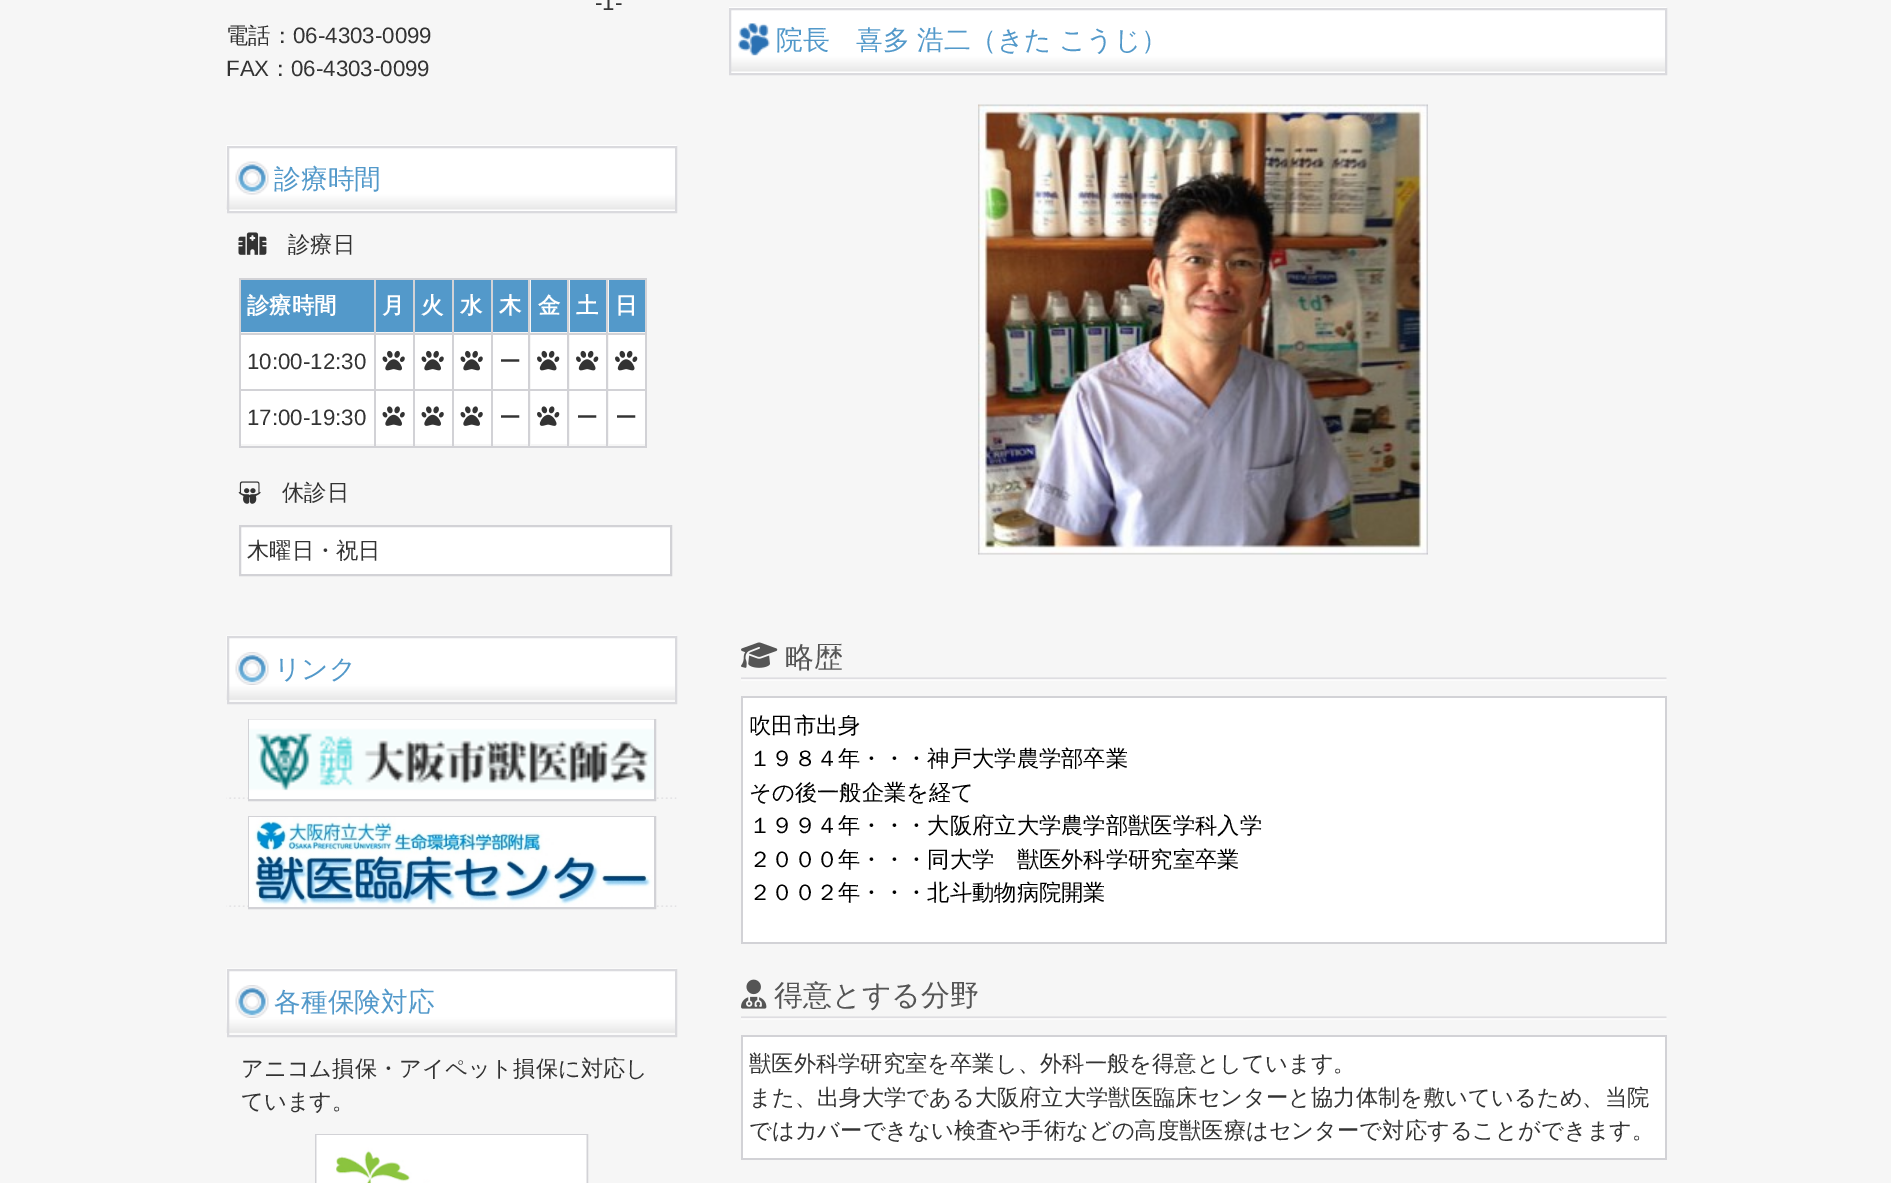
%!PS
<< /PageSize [1891 1183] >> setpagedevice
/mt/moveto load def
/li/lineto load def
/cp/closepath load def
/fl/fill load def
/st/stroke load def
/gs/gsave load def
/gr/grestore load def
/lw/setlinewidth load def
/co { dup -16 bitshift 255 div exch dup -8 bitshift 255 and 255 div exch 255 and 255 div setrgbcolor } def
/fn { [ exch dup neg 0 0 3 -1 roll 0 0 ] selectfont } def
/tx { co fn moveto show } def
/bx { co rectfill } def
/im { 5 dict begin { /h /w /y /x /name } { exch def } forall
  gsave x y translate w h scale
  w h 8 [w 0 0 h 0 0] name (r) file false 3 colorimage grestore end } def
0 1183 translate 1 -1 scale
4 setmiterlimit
0 0 1891 1183 16#F6F6F6 bx
(media/1.raw) 226 145 451 66 im
16#DADADE co
2 lw
228 147 448 65 rectstroke
(media/2.raw) 235 161 34 34 im
(media/3.raw) 238 232 29 23 im
239 278 408 2 16#D2D2D6 bx
645 278 2 169 16#D2D2D6 bx
239 446 408 2 16#D2D2D6 bx
239 278 2 169 16#D2D2D6 bx
241 280 133 52 16#5399CA bx
606 389 2 58 16#D2D2D6 bx
606 389 41 2 16#D2D2D6 bx
606 333 2 57 16#D2D2D6 bx
606 333 41 2 16#D2D2D6 bx
606 278 2 57 16#D2D2D6 bx
567 389 2 58 16#D2D2D6 bx
567 389 41 2 16#D2D2D6 bx
567 333 2 57 16#D2D2D6 bx
567 333 41 2 16#D2D2D6 bx
567 278 2 57 16#D2D2D6 bx
528 389 2 58 16#D2D2D6 bx
528 389 41 2 16#D2D2D6 bx
528 333 2 57 16#D2D2D6 bx
528 333 41 2 16#D2D2D6 bx
528 278 2 57 16#D2D2D6 bx
491 389 2 58 16#D2D2D6 bx
491 389 39 2 16#D2D2D6 bx
491 333 2 57 16#D2D2D6 bx
491 333 39 2 16#D2D2D6 bx
491 278 2 57 16#D2D2D6 bx
452 389 2 58 16#D2D2D6 bx
452 389 40 2 16#D2D2D6 bx
452 333 2 57 16#D2D2D6 bx
452 333 40 2 16#D2D2D6 bx
452 278 2 57 16#D2D2D6 bx
413 389 2 58 16#D2D2D6 bx
413 389 40 2 16#D2D2D6 bx
413 333 2 57 16#D2D2D6 bx
413 333 40 2 16#D2D2D6 bx
413 278 2 57 16#D2D2D6 bx
374 389 2 58 16#D2D2D6 bx
374 389 40 2 16#D2D2D6 bx
374 333 2 57 16#D2D2D6 bx
374 333 40 2 16#D2D2D6 bx
374 278 2 57 16#D2D2D6 bx
239 333 136 2 16#D2D2D6 bx
376 280 37 52 16#5399CA bx
415 280 37 52 16#5399CA bx
454 280 37 52 16#5399CA bx
493 280 35 52 16#5399CA bx
531 280 36 52 16#5399CA bx
570 280 36 52 16#5399CA bx
609 280 36 52 16#5399CA bx
241 335 133 54 16#FFFFFF bx
239 389 136 2 16#D2D2D6 bx
376 335 37 54 16#FFFFFF bx
(media/4.raw) 382 350 23 21 im
415 335 37 54 16#FFFFFF bx
(media/4.raw) 421 350 23 21 im
454 335 37 54 16#FFFFFF bx
(media/4.raw) 460 350 23 21 im
493 335 35 54 16#FFFFFF bx
531 335 36 54 16#FFFFFF bx
(media/5.raw) 537 350 23 21 im
570 335 36 54 16#FFFFFF bx
(media/5.raw) 576 350 23 21 im
609 335 36 54 16#FFFFFF bx
(media/5.raw) 615 350 23 21 im
241 391 133 53 16#FFFFFF bx
376 391 37 53 16#FFFFFF bx
(media/6.raw) 382 406 23 20 im
415 391 37 53 16#FFFFFF bx
(media/6.raw) 421 406 23 20 im
454 391 37 53 16#FFFFFF bx
(media/6.raw) 460 406 23 20 im
493 391 35 53 16#FFFFFF bx
531 391 36 53 16#FFFFFF bx
(media/7.raw) 537 406 23 20 im
570 391 36 53 16#FFFFFF bx
609 391 36 53 16#FFFFFF bx
(media/8.raw) 238 481 23 23 im
240 526 mt 671 526 li 671 575 li 240 575 li cp gs fl gr
16#D2D2D6 co
st
(media/9.raw) 226 635 451 67 im
16#DADADE co
228 637 448 66 rectstroke
(media/10.raw) 235 652 34 33 im
(media/11.raw) 226 797 451 2 im
16#D2D2D6 co
249 720 406 80 rectstroke
(media/12.raw) 249 719 405 80 im
(media/11.raw) 226 905 451 2 im
249 817 406 91 rectstroke
(media/13.raw) 249 817 405 90 im
(media/9.raw) 226 968 451 67 im
16#DADADE co
228 970 448 66 rectstroke
(media/10.raw) 235 985 34 33 im
16#D2D2D6 co
316 1135 271 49 rectstroke
(media/14.raw) 316 1135 271 48 im
731 72 934 1 16#FFFFFF bx
(media/15.raw) 729 7 938 65 im
16#DADADE co
730 9 936 65 rectstroke
(media/16.raw) 738 23 32 33 im
(media/17.raw) 978 104 450 451 im
(media/18.raw) 741 677 926 4 im
(media/19.raw) 741 642 37 26 im
741 696 926 2 16#D2D2D6 bx
1665 696 2 248 16#D2D2D6 bx
741 942 926 2 16#D2D2D6 bx
741 696 2 248 16#D2D2D6 bx
743 698 922 244 16#FFFFFF bx
(media/18.raw) 741 1016 926 4 im
(media/20.raw) 741 979 26 30 im
741 1035 926 2 16#D2D2D6 bx
1665 1035 2 125 16#D2D2D6 bx
741 1158 926 2 16#D2D2D6 bx
741 1035 2 125 16#D2D2D6 bx
743 1037 922 121 16#FFFFFF bx
(-1-) 595 10 /LiberationSans-Regular 22.3 16#333333 tx
(電話：) 226 43 /WenQuanYiZenHei-Medium 22.3 16#333333 tx
(06-4303-0099) 293 43 /LiberationSans-Regular 22.3 16#333333 tx
(FAX) 226 76 /LiberationSans-Regular 22.3 16#333333 tx
(：) 269 76 /WenQuanYiZenHei-Medium 22.3 16#333333 tx
(06-4303-0099) 291 76 /LiberationSans-Regular 22.3 16#333333 tx
(診療時間) 274 188 /WenQuanYiZenHei-Medium 26.75 16#5399CA tx
(診療日) 288 252 /WenQuanYiZenHei-Medium 22.3 16#333333 tx
(診療時間) 247 313 /WenQuanYiZenHei-Bold 22.3 16#FFFFFF tx
(月) 382 313 /WenQuanYiZenHei-Bold 22.3 16#FFFFFF tx
(火) 421 313 /WenQuanYiZenHei-Bold 22.3 16#FFFFFF tx
(水) 460 313 /WenQuanYiZenHei-Bold 22.3 16#FFFFFF tx
(木) 499 313 /WenQuanYiZenHei-Bold 22.3 16#FFFFFF tx
(金) 538 313 /WenQuanYiZenHei-Bold 22.3 16#FFFFFF tx
(土) 576 313 /WenQuanYiZenHei-Bold 22.3 16#FFFFFF tx
(日) 615 313 /WenQuanYiZenHei-Bold 22.3 16#FFFFFF tx
(10:00-12:30) 247 369 /LiberationSans-Regular 22.3 16#333333 tx
(ー) 499 369 /WenQuanYiZenHei-Medium 22.3 16#333333 tx
(17:00-19:30) 247 425 /LiberationSans-Regular 22.3 16#333333 tx
(ー) 499 425 /WenQuanYiZenHei-Medium 22.3 16#333333 tx
(ー) 576 425 /WenQuanYiZenHei-Medium 22.3 16#333333 tx
(ー) 615 425 /WenQuanYiZenHei-Medium 22.3 16#333333 tx
(休診日) 282 500 /WenQuanYiZenHei-Medium 22.3 16#333333 tx
(木曜日・祝日) 247 558 /WenQuanYiZenHei-Medium 22.3 16#333333 tx
(リンク) 274 678 /WenQuanYiZenHei-Medium 26.75 16#5399CA tx
(各種保険対応) 274 1011 /WenQuanYiZenHei-Medium 26.75 16#5399CA tx
(アニコム損保・アイペット損保に対応し) 241 1076 /WenQuanYiZenHei-Medium 22.3 16#333333 tx
(ています。) 241 1109 /WenQuanYiZenHei-Medium 22.3 16#333333 tx
/WenQuanYiZenHei-Medium 26.75 fn
16#5399CA co
776 49 mt -1 0 32 (院長　喜多 浩二（きた こうじ）) widthshow
(略歴) 785 667 /WenQuanYiZenHei-Medium 29 16#555555 tx
(吹田市出身) 749 733 /WenQuanYiZenHei-Medium 22.3 16#000000 tx
(１９８４年・・・神戸大学農学部卒業) 749 766 /WenQuanYiZenHei-Medium 22.3 16#000000 tx
(その後一般企業を経て) 749 800 /WenQuanYiZenHei-Medium 22.3 16#000000 tx
(１９９４年・・・大阪府立大学農学部獣医学科入学) 749 833 /WenQuanYiZenHei-Medium 22.3 16#000000 tx
(２０００年・・・同大学　獣医外科学研究室卒業) 749 867 /WenQuanYiZenHei-Medium 22.3 16#000000 tx
(２００２年・・・北斗動物病院開業) 749 900 /WenQuanYiZenHei-Medium 22.3 16#000000 tx
(得意とする分野) 774 1005 /WenQuanYiZenHei-Medium 29 16#555555 tx
(獣医外科学研究室を卒業し、外科一般を得意としています。) 749 1071 /WenQuanYiZenHei-Medium 22.3 16#333333 tx
(また、出身大学である大阪府立大学獣医臨床センターと協力体制を敷いているため、当院) 749 1105 /WenQuanYiZenHei-Medium 22.3 16#333333 tx
(ではカバーできない検査や手術などの高度獣医療はセンターで対応することができます。) 749 1138 /WenQuanYiZenHei-Medium 22.3 16#333333 tx
showpage
